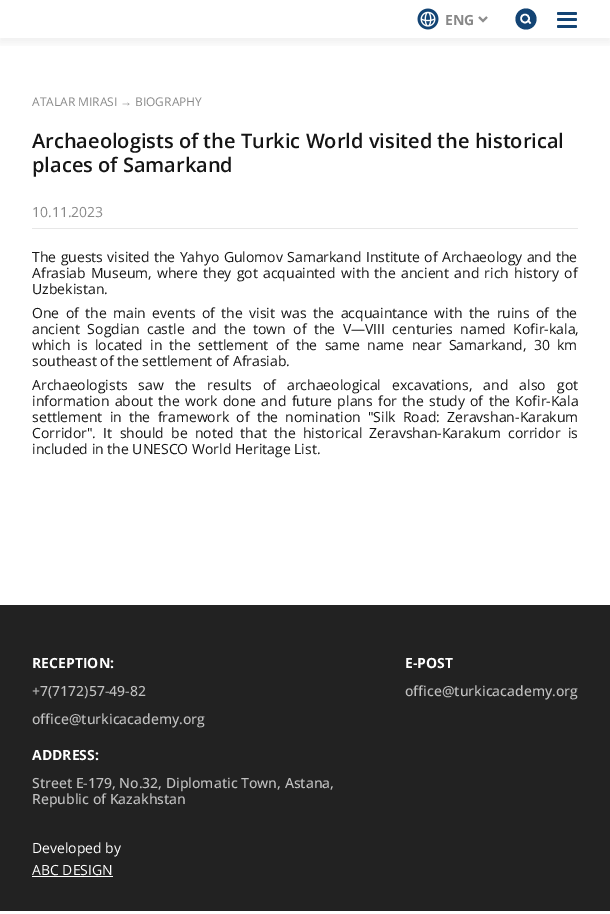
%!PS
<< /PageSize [610 914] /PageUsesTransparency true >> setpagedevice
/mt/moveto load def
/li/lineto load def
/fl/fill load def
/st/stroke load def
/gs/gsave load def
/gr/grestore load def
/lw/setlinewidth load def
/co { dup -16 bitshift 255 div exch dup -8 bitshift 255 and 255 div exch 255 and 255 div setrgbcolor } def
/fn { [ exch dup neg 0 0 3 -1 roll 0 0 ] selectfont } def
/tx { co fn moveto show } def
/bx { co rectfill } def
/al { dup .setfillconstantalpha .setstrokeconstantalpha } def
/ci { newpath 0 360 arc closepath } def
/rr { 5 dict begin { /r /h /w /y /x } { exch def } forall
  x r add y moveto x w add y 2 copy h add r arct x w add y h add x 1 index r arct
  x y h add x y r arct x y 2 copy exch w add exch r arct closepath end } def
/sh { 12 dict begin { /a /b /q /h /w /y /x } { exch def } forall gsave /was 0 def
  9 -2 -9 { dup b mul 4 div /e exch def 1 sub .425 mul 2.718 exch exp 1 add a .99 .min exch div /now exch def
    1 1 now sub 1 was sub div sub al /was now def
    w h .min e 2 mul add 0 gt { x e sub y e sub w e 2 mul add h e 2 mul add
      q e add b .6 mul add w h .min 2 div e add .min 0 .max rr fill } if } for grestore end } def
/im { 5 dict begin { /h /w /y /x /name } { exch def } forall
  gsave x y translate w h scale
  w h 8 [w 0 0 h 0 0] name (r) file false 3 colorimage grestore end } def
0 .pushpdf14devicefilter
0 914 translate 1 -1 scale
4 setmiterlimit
0 0 610 914 16#FFFFFF bx
gs
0 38 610 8 rectclip
16#515151 co
0 4 610 38 0 5 .1 sh
gr
(media/1.raw) 417 8 22 22 im
16#8C8C8C co
2 lw
479 17 mt 483 21 li 487 17 li st
16#134474 co
526 19 10.5 ci fl
16#FFFFFF co
1.6 lw
528.5 21 mt 530.5 23.5 li st
525 18.5 4 ci st
16#134474 co
557 12 20 3 1.5 rr fl
557 18 20 3 1.5 rr fl
557 25 20 3 1.5 rr fl
32 228 546 1 16#E7E7E7 bx
0 605 610 306 16#222222 bx
32 876 81 1 16#FFFFFF bx
(ENG) 445 25 /OpenSans-Bold 14 16#888888 tx
(ATALAR MIRASI) 32 106 /OpenSans-Regular 12 16#888888 tx
(→) 120 106 /LiberationSerif-Regular 12 16#888888 tx
(BIOGRAPHY) 135 106 /OpenSans-Regular 12 16#888888 tx
(Archaeologists of the Turkic World visited the historical) 32 148 /OpenSans-SemiBold 20 16#151515 tx
(places of Samarkand) 32 172 /OpenSans-SemiBold 20 16#151515 tx
(10.11.2023) 32 217 /OpenSans-Regular 14 16#888888 tx
16#151515 co
32 262 mt .75 0 32 (The guests visited the Yahyo Gulomov Samarkand Institute of Archaeology and the) widthshow
32 278 mt 1.6 0 32 (Afrasiab Museum, where they got acquainted with the ancient and rich history of) widthshow
(Uzbekistan.) 32 294 /OpenSans-Regular 14 16#151515 tx
32 318 mt 2.75 0 32 (One of the main events of the visit was the acquaintance with the ruins of the) widthshow
32 334 mt 3.75 0 32 (ancient Sogdian castle and the town of the V—VIII centuries named Kofir-kala,) widthshow
32 350 mt 3.6 0 32 (which is located in the settlement of the same name near Samarkand, 30 km) widthshow
(southeast of the settlement of Afrasiab.) 32 366 /OpenSans-Regular 14 16#151515 tx
32 390 mt 7.5 0 32 (Archaeologists saw the results of archaeological excavations, and also got) widthshow
32 406 mt 1.7 0 32 (information about the work done and future plans for the study of the Kofir-Kala) widthshow
32 422 mt 3.6 0 32 (settlement in the framework of the nomination "Silk Road: Zeravshan-Karakum) widthshow
32 438 mt 3.6 0 32 (Corridor". It should be noted that the historical Zeravshan-Karakum corridor is) widthshow
(included in the UNESCO World Heritage List.) 32 454 /OpenSans-Regular 14 16#151515 tx
(RECEPTION:) 32 668 /OpenSans-Bold 14 16#FFFFFF tx
(+7\(7172\)57-49-82) 32 696 /OpenSans-Medium 14 16#C1C1C1 tx
(office@turkicacademy.org) 32 724 /OpenSans-Medium 14 16#C1C1C1 tx
(E-POST) 405 668 /OpenSans-Bold 14 16#FFFFFF tx
(office@turkicacademy.org) 405 696 /OpenSans-Medium 14 16#C1C1C1 tx
(ADDRESS:) 32 760 /OpenSans-Bold 14 16#FFFFFF tx
(Street E-179, No.32, Diplomatic Town, Astana,) 32 788 /OpenSans-Medium 14 16#C1C1C1 tx
(Republic of Kazakhstan) 32 804 /OpenSans-Medium 14 16#C1C1C1 tx
(Developed by) 32 853 /OpenSans-Regular 14 16#FFFFFF tx
(ABC DESIGN) 32 875 /OpenSans-Regular 14 16#FFFFFF tx
.poppdf14devicefilter showpage
